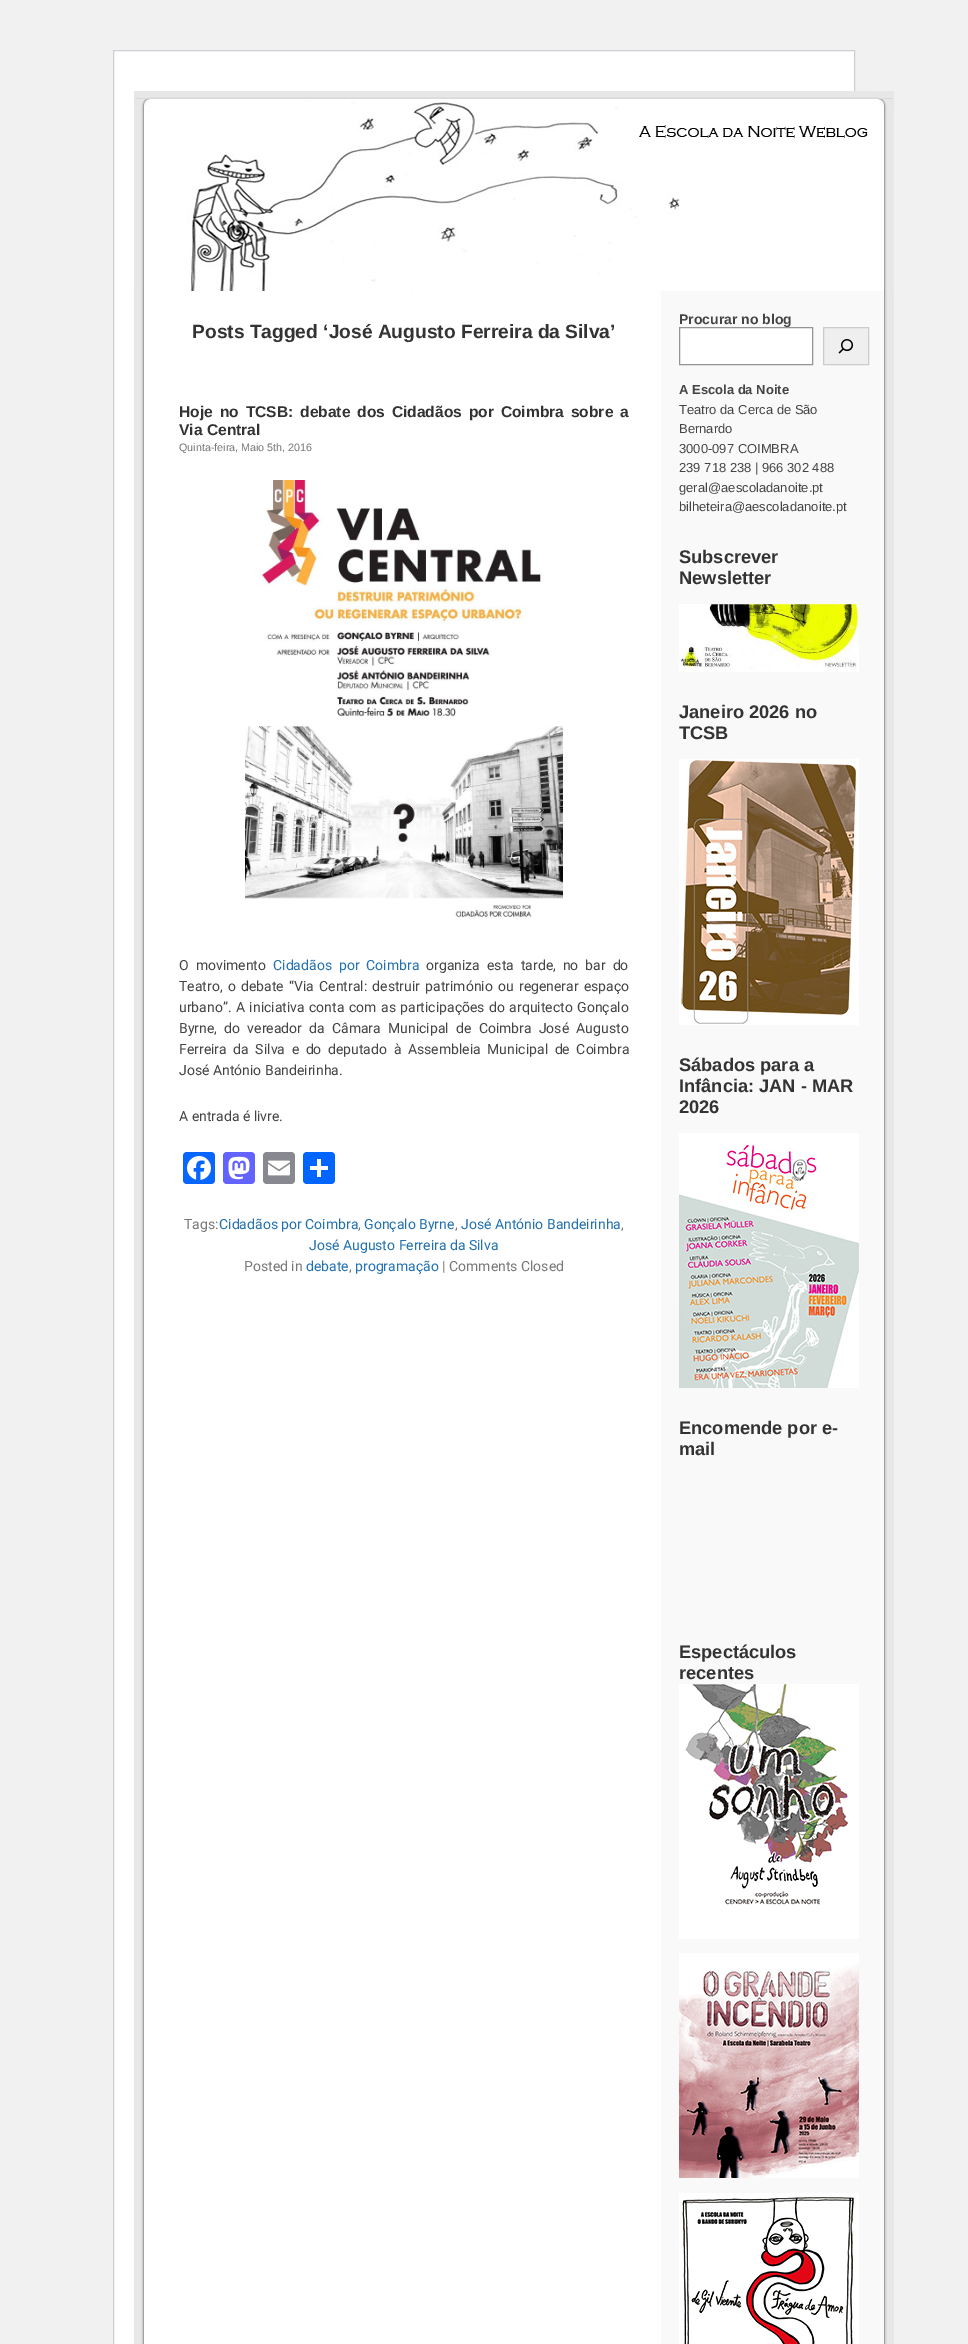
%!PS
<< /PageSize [968 2344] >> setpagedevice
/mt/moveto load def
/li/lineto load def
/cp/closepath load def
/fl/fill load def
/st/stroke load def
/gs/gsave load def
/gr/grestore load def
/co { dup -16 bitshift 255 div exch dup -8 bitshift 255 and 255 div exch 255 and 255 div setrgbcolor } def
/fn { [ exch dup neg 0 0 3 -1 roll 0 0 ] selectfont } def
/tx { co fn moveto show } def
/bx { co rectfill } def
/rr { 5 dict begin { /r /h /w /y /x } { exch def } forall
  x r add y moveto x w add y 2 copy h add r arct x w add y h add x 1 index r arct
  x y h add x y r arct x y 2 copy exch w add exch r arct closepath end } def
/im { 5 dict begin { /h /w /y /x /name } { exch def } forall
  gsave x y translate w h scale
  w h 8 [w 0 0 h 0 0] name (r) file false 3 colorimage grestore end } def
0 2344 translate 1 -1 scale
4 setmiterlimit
0 0 968 2344 16#F1F1F1 bx
16#FFFFFF co
113.5 50.5 mt 854.5 50.5 li 854.5 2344.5 li 113.5 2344.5 li cp gs fl gr
16#CCD0D4 co
st
(media/1.raw) 134 91 760 2253 im
(media/2.raw) 135 91 758 200 im
135 98 758 1 16#DADADA bx
(media/3.raw) 245 480 318 438 im
16#0866FF co
183 1152 32 32 4 rr fl
(media/4.raw) 187 1156 24 24 im
16#6364FF co
223 1152 32 32 4 rr fl
(media/5.raw) 228 1156 22 24 im
16#888990 co
263 1152 32 32 4 rr fl
(media/6.raw) 268 1160 22 16 im
16#0166FF co
303 1152 32 32 4 rr fl
317 1159 4 18 16#FFFFFF bx
310 1166 18 4 16#FFFFFF bx
679.5 327.5 mt 812.5 327.5 li 812.5 364.5 li 679.5 364.5 li cp gs fl gr
16#949494 co
st
16#EFEFEF co
823.5 327.5 mt 868.5 327.5 li 868.5 364.5 li 823.5 364.5 li cp gs fl gr
16#CCCCCC co
st
(media/7.raw) 838 339 16 15 im
(media/8.raw) 679 604 180 68 im
(media/9.raw) 679 759 180 266 im
(media/10.raw) 679 1133 180 255 im
(media/11.raw) 679 1684 180 255 im
(media/12.raw) 679 1953 180 225 im
(media/13.raw) 679 2193 180 151 im
(Posts Tagged ‘José Augusto Ferreira da Silva’) 192 338 /LiberationSans-Bold 19.2 16#333333 tx
/LiberationSans-Bold 15.6 fn
179 417 mt 2.5 0 32 (Hoje no TCSB: debate dos Cidadãos por Coimbra sobre a) widthshow
(Via Central) 179 435 /LiberationSans-Bold 15.6 16#333333 tx
(Quinta-feira, Maio 5th, 2016) 179 451 /LiberationSans-Regular 10.75 16#777777 tx
/Roboto-Regular 14 fn
16#444444 co
179 970 mt 3.5 0 32 (O movimento) widthshow
16#2271B1 co
273 970 mt 3.5 0 32 (Cidadãos por Coimbra) widthshow
16#444444 co
426 970 mt 3.5 0 32 (organiza esta tarde, no bar do) widthshow
179 991 mt 1.75 0 32 (Teatro, o debate “Via Central: destruir património ou regenerar espaço) widthshow
179 1012 mt 1 0 32 (urbano”. A iniciativa conta com as participações do arquitecto Gonçalo) widthshow
179 1033 mt 3.75 0 32 (Byrne, do vereador da Câmara Municipal de Coimbra José Augusto) widthshow
179 1054 mt 3.1 0 32 (Ferreira da Silva e do deputado à Assembleia Municipal de Coimbra) widthshow
(José António Bandeirinha.) 179 1075 /Roboto-Regular 14 16#444444 tx
(A entrada é livre.) 179 1121 /Roboto-Regular 14 16#444444 tx
(Tags:) 184 1229 /Roboto-Regular 14 16#777777 tx
(Cidadãos por Coimbra) 219 1229 /Roboto-Regular 14 16#2271B1 tx
(,) 358 1229 /Roboto-Regular 14 16#777777 tx
(Gonçalo Byrne) 364 1229 /Roboto-Regular 14 16#2271B1 tx
(,) 455 1229 /Roboto-Regular 14 16#777777 tx
(José António Bandeirinha) 461 1229 /Roboto-Regular 14 16#2271B1 tx
(,) 621 1229 /Roboto-Regular 14 16#777777 tx
(José Augusto Ferreira da Silva) 309 1250 /Roboto-Regular 14 16#2271B1 tx
(Posted in) 244 1271 /Roboto-Regular 14 16#777777 tx
(debate) 306 1271 /Roboto-Regular 14 16#2271B1 tx
(,) 349 1271 /Roboto-Regular 14 16#777777 tx
(programação) 355 1271 /Roboto-Regular 14 16#2271B1 tx
(| Comments Closed) 442 1271 /Roboto-Regular 14 16#777777 tx
(Procurar no blog) 679 324 /LiberationSans-Bold 14 16#444444 tx
(A Escola da Noite) 679 394 /LiberationSans-Bold 13 16#444444 tx
(Teatro da Cerca de São) 679 414 /LiberationSans-Regular 13 16#444444 tx
(Bernardo) 679 433 /LiberationSans-Regular 13 16#444444 tx
(3000-097 COIMBRA) 679 453 /LiberationSans-Regular 13 16#444444 tx
(239 718 238 | 966 302 488) 679 472 /LiberationSans-Regular 13 16#444444 tx
(geral@aescoladanoite.pt) 679 492 /LiberationSans-Regular 13 16#444444 tx
(bilheteira@aescoladanoite.pt) 679 511 /LiberationSans-Regular 13 16#444444 tx
(Subscrever) 679 563 /LiberationSans-Bold 18.25 16#333333 tx
(Newsletter) 679 584 /LiberationSans-Bold 18.25 16#333333 tx
(Janeiro 2026 no) 679 718 /LiberationSans-Bold 18.25 16#333333 tx
(TCSB) 679 739 /LiberationSans-Bold 18.25 16#333333 tx
(Sábados para a) 679 1071 /LiberationSans-Bold 18.25 16#333333 tx
(Infância: JAN - MAR) 679 1092 /LiberationSans-Bold 18.25 16#333333 tx
(2026) 679 1113 /LiberationSans-Bold 18.25 16#333333 tx
(Encomende por e-) 679 1434 /LiberationSans-Bold 18.25 16#333333 tx
(mail) 679 1455 /LiberationSans-Bold 18.25 16#333333 tx
(Espectáculos) 679 1658 /LiberationSans-Bold 18.25 16#333333 tx
(recentes) 679 1679 /LiberationSans-Bold 18.25 16#333333 tx
showpage
